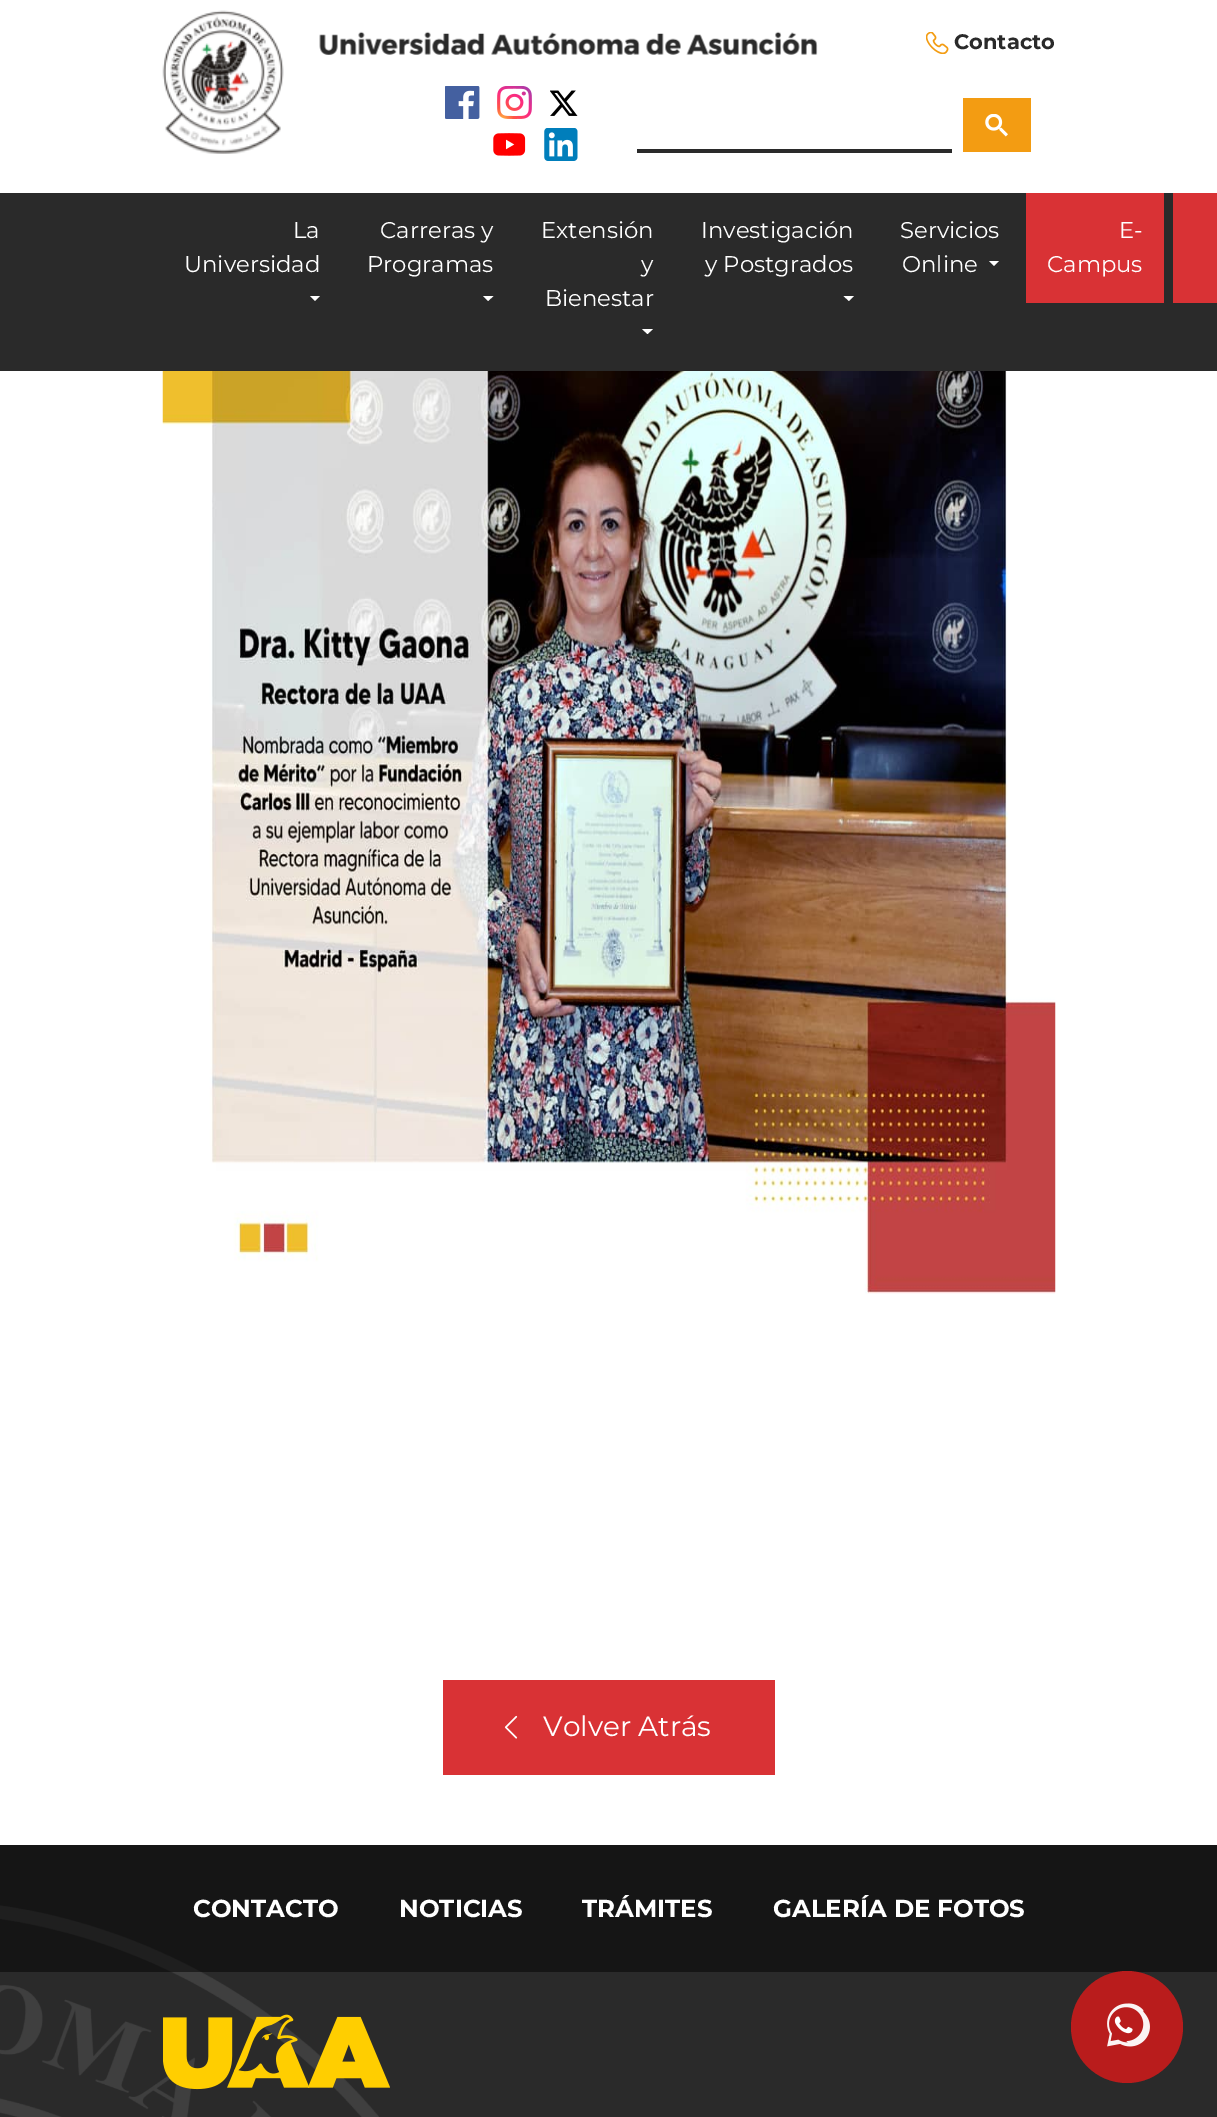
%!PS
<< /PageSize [1217 2117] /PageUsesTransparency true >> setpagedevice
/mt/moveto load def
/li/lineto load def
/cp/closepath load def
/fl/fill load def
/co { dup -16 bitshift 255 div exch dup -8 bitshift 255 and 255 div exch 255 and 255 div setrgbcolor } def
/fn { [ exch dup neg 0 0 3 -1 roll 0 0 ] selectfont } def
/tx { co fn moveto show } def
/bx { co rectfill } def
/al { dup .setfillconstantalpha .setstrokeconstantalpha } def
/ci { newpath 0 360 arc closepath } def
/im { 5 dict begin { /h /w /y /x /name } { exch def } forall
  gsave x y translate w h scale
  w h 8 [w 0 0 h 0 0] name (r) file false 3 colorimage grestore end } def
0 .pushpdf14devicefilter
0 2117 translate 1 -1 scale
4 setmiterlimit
0 0 1217 2117 16#FFFFFF bx
(media/1.raw) 162 10 122 144 im
(media/2.raw) 319 31 499 24 im
(media/3.raw) 926 32 23 22 im
(media/4.raw) 445 86 35 33 im
(media/5.raw) 497 86 35 33 im
(media/6.raw) 550 90 28 26 im
(media/7.raw) 493 133 33 23 im
(media/8.raw) 544 128 34 33 im
637 149 315 4 16#2A2A2A bx
963 98 68 54 16#F39C12 bx
(media/9.raw) 985 114 23 23 im
0 193 1217 178 16#2A2A2A bx
16#FFFFFF co
310 296 mt 320 296 li 315 301 li cp fl
483 296 mt 493.5 296 li 488 301 li cp fl
642 329 mt 653 329 li 647.5 334 li cp fl
843.5 296 mt 854 296 li 849 301 li cp fl
989 261 mt 999 261 li 994 266 li cp fl
1026 193 138 110 16#D93235 bx
1173 193 44 110 16#D93235 bx
(media/10.raw) 162 371 894 923 im
443 1680 332 95 16#D93235 bx
(media/11.raw) 504 1715 14 24 im
0 1845 1217 272 16#2A2A2A bx
(media/12.raw) 0 1905 379 212 im
0.5 al
0 1845 1217 127 16#000000 bx
1 al
(media/13.raw) 163 2014 227 76 im
16#B91C1C co
1127 2027 56 ci fl
(media/14.raw) 1107 2003 43 44 im
(Contacto) 954 49 /Montserrat-Bold 21 16#2A2A2A tx
(La) 293 238 /Montserrat-Regular 22.75 16#FFFFFF tx
(Universidad) 184 272 /Montserrat-Regular 22.75 16#FFFFFF tx
(Carreras y) 380 238 /Montserrat-Regular 22.75 16#FFFFFF tx
(Programas) 367 272 /Montserrat-Regular 22.75 16#FFFFFF tx
(Extensión) 541 238 /Montserrat-Regular 22.75 16#FFFFFF tx
(y) 641 272 /Montserrat-Regular 22.75 16#FFFFFF tx
(Bienestar) 545 306 /Montserrat-Regular 22.75 16#FFFFFF tx
(Investigación) 701 238 /Montserrat-Regular 22.75 16#FFFFFF tx
(y Postgrados) 705 272 /Montserrat-Regular 22.75 16#FFFFFF tx
(Servicios) 900 238 /Montserrat-Regular 22.75 16#FFFFFF tx
(Online) 902 272 /Montserrat-Regular 22.75 16#FFFFFF tx
(E-) 1119 238 /Montserrat-Regular 22.75 16#FFFFFF tx
(Campus) 1047 272 /Montserrat-Regular 22.75 16#FFFFFF tx
(Volver Atrás) 543 1736 /Montserrat-Regular 28 16#FFFFFF tx
(CONTACTO) 193 1917 /Montserrat-Bold 24.5 16#FFFFFF tx
(NOTICIAS) 399 1917 /Montserrat-Bold 24.5 16#FFFFFF tx
(TRÁMITES) 582 1917 /Montserrat-Bold 24.5 16#FFFFFF tx
(GALERÍA DE FOTOS) 773 1917 /Montserrat-Bold 24.5 16#FFFFFF tx
.poppdf14devicefilter showpage
